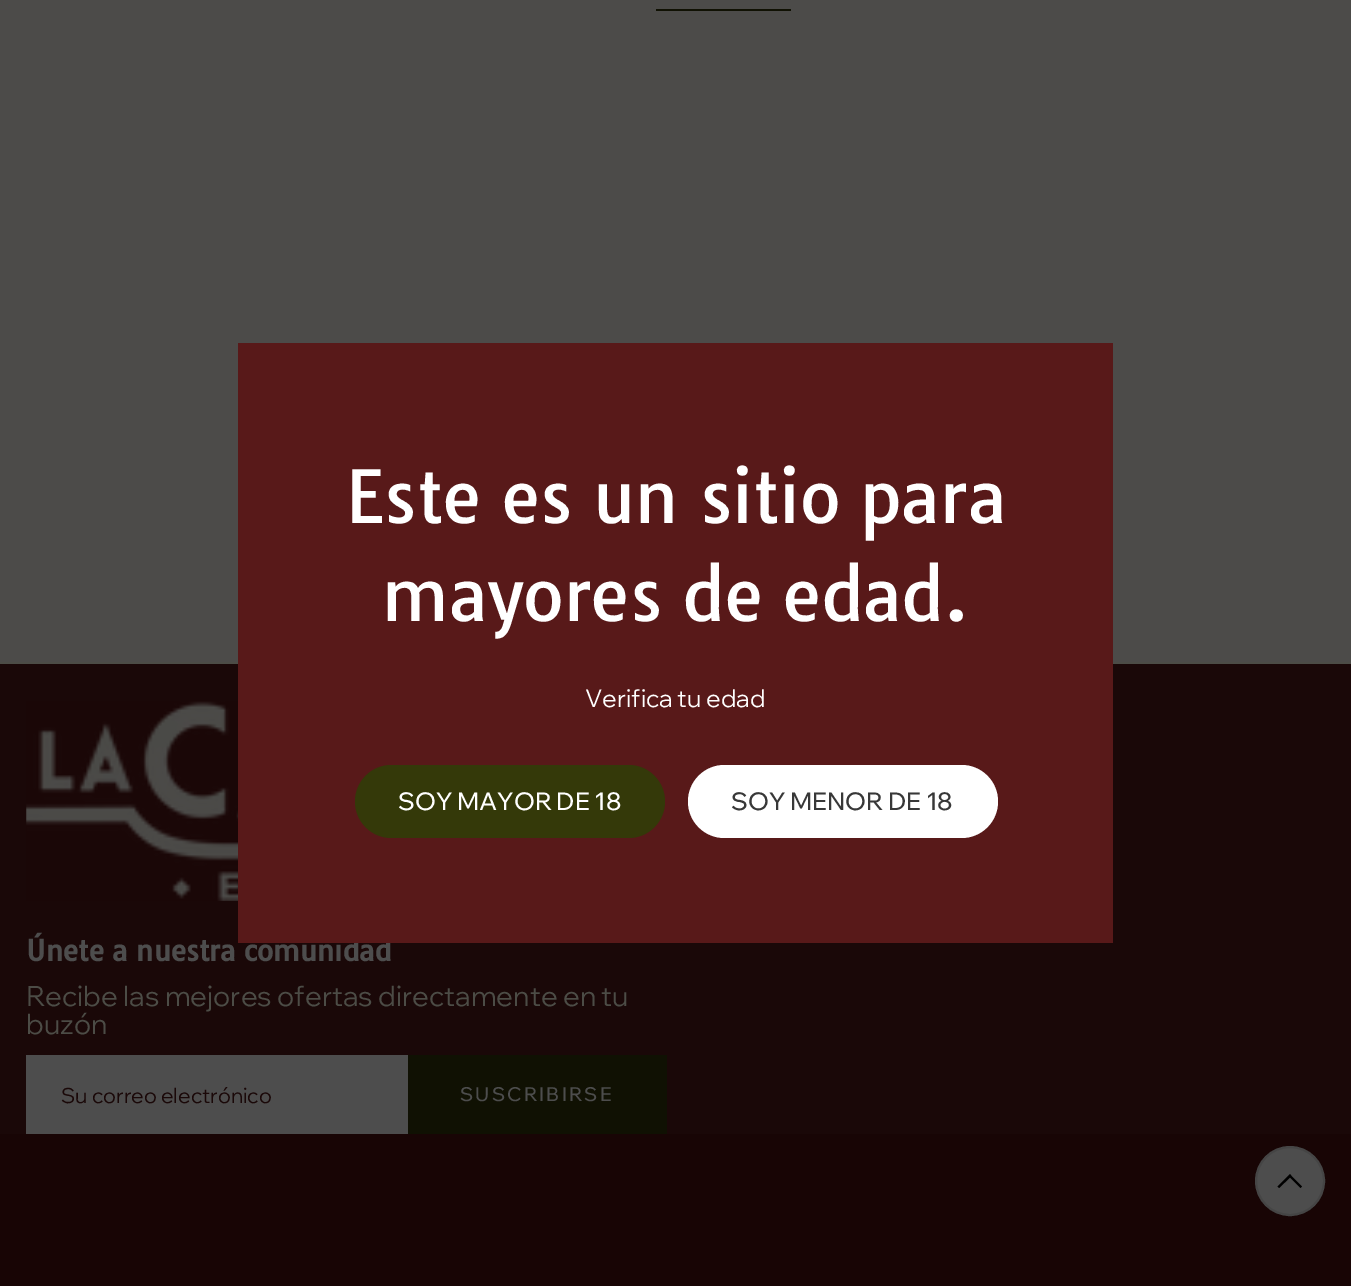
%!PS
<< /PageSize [1351 1286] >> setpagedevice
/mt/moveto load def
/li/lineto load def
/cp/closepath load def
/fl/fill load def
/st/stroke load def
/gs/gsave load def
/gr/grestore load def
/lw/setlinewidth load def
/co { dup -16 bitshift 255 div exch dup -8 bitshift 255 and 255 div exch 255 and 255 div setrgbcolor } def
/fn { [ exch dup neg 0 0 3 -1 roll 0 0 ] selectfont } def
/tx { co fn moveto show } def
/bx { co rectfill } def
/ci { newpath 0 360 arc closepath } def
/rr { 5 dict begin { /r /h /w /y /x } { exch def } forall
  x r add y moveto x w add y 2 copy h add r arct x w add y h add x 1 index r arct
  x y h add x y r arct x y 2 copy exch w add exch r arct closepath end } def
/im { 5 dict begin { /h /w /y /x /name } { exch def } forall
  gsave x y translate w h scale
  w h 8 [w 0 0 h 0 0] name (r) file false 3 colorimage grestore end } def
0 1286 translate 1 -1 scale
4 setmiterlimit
0 0 1351 1286 16#4C4B49 bx
656 9 135 2 16#101103 bx
0 664 1351 470 16#1A0808 bx
0 662 1351 2 16#4C4C46 bx
(media/1.raw) 26 701 212 200 im
26 1055 382 79 16#4D4D4D bx
408 1055 259 79 16#101103 bx
0 1134 1351 152 16#180505 bx
16#4D4D4D co
1290 1181 34 ci gs fl gr
16#454545 co
2 lw
st
16#000000 co
1291.5 1176 mt 1290 1174 li 1277.5 1186.5 li 1279 1188 li 1290 1177.5 li 1300.5 1188 li 1302 1186.5 li 1296 1180.5 li cp fl
(Únete a nuestra comunidad) 26 961 /Tauri-Bold 28 16#4D4D4D tx
238 343 875 600 16#581919 bx
16#FFFFFF co
688 765 310 73 36.5 rr fl
(SOY MENOR DE 18) 731 810 /WixMadeforDisplay-Medium 24.5 16#383838 tx
16#343909 co
355 765 310 73 36.5 rr fl
(SOY MAYOR DE 18) 398 810 /WixMadeforDisplay-Medium 24.5 16#FFFFFF tx
(Verifica tu edad) 585 707 /WixMadeforDisplay-Regular 24.5 16#FFFFFF tx
(mayores de edad.) 382 621 /Tauri-Regular 70 16#FFFFFF tx
(Este es un sitio para) 345 523 /Tauri-Regular 70 16#FFFFFF tx
(Recibe las mejores ofertas directamente en tu) 26 1006 /WixMadeforDisplay-Regular 28 16#4C4C46 tx
(buzón) 26 1034 /WixMadeforDisplay-Regular 28 16#4C4C46 tx
(Su correo electrónico) 61 1103 /WixMadeforDisplay-Regular 21 16#1A0808 tx
/WixMadeforDisplay-Medium 19.25 fn
16#4D4D4D co
460 1101 mt 2.25 0 (SUSCRIBIRSE) ashow
showpage
